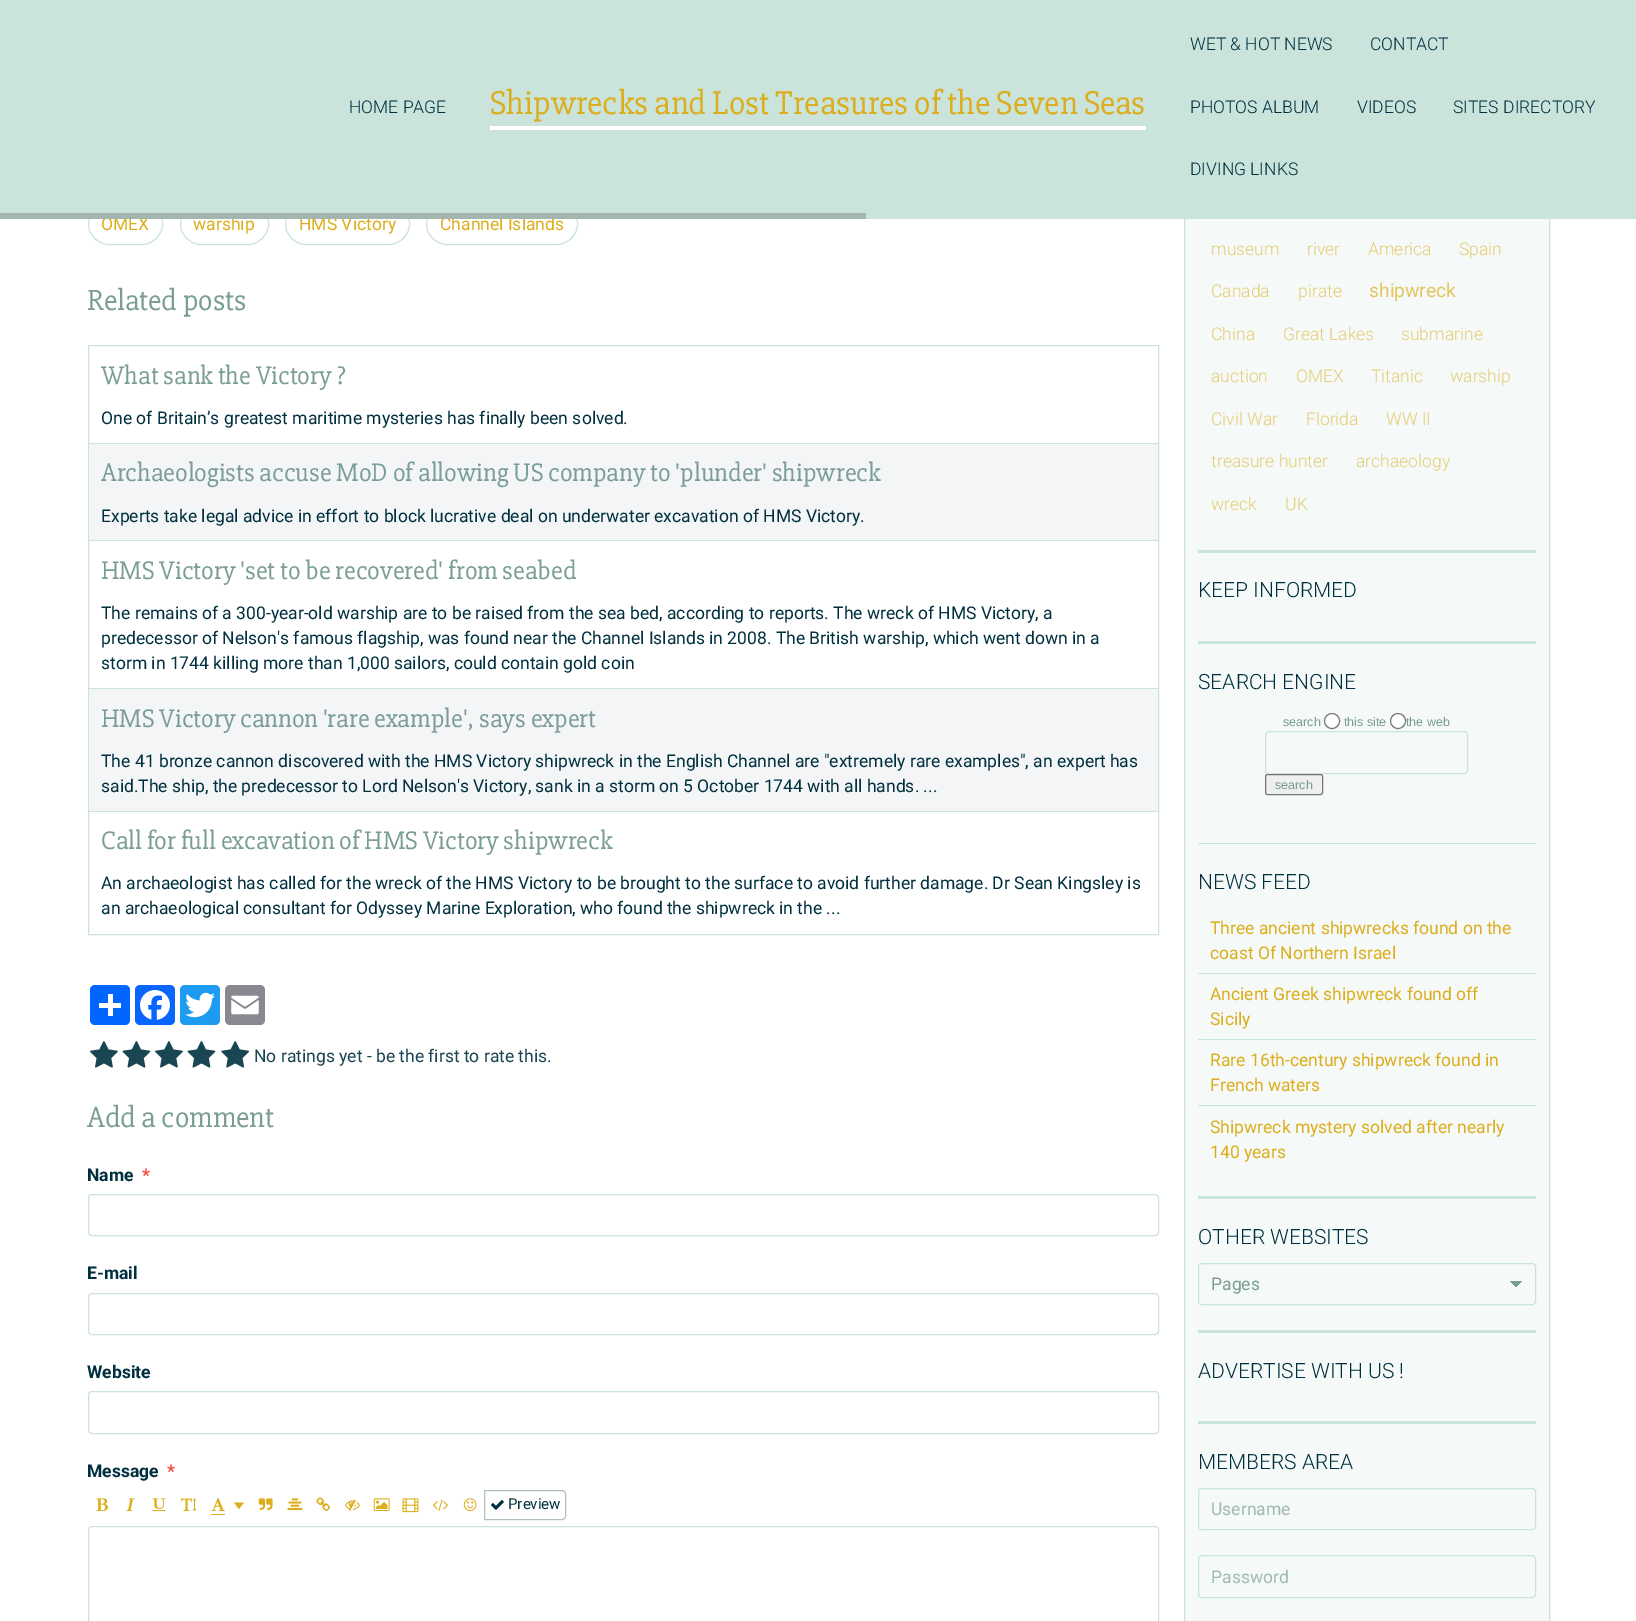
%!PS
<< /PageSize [1636 1621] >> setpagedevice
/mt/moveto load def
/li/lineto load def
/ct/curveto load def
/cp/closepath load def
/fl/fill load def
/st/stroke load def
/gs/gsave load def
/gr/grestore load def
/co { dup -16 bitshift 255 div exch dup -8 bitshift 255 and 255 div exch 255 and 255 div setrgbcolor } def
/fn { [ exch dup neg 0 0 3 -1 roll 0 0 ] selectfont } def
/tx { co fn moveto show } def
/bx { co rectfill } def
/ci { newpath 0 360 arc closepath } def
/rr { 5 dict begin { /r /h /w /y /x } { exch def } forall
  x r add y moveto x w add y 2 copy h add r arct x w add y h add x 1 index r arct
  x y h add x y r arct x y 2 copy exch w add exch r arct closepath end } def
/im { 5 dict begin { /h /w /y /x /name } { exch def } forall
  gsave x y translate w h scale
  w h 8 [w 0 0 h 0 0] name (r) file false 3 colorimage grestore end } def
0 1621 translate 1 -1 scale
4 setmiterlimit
0 0 1636 1621 16#FFFFFF bx
16#CAE4DB co
88.5 203.5 74 41 20.5 rr st
180.5 203.5 88 41 20.5 rr st
285.5 203.5 124 41 20.5 rr st
426.5 203.5 151 41 20.5 rr st
88.5 345.5 1070 589 rectstroke
89 443 1069 1 16#CAE4DB bx
89 540 1069 1 16#CAE4DB bx
89 444 1069 96 16#F3F5F6 bx
89 688 1069 1 16#CAE4DB bx
89 811 1069 1 16#CAE4DB bx
89 689 1069 122 16#F3F5F6 bx
16#0166FF co
90 985 40 40 5 rr fl
108 994 5 22 16#FFFFFF bx
99 1003 22 5 16#FFFFFF bx
16#0866FF co
135 985 40 40 5 rr fl
(media/1.raw) 140 990 30 30 im
16#1D9BF0 co
180 985 40 40 5 rr fl
(media/2.raw) 185 992 30 26 im
16#888990 co
225 985 40 40 5 rr fl
(media/3.raw) 231 995 28 20 im
(media/4.raw) 90 1041 28 27 im
(media/5.raw) 122 1041 29 27 im
(media/4.raw) 155 1041 28 27 im
(media/5.raw) 187 1041 29 27 im
(media/6.raw) 221 1041 29 27 im
16#CAE4DB co
88.5 1194.5 1070 41 3.5 rr st
88.5 1293.5 1070 41 3.5 rr st
88.5 1391.5 1070 42 3.5 rr st
(media/7.raw) 96 1498 12 14 im
(media/8.raw) 126 1498 9 14 im
(media/9.raw) 152 1498 14 14 im
(media/10.raw) 181 1498 15 14 im
(media/11.raw) 211 1498 15 14 im
211 1514 14 1 16#DCAE1D bx
234 1502.5 mt 244 1502.5 li 239 1509 li cp fl
(media/12.raw) 258 1498 15 12 im
(media/13.raw) 287 1498 16 12 im
(media/14.raw) 316 1497 14 14 im
(media/15.raw) 345 1499 15 12 im
(media/16.raw) 373 1498 17 14 im
(media/17.raw) 402 1498 17 15 im
(media/18.raw) 432 1499 16 12 im
(media/19.raw) 463 1498 14 14 im
(media/20.raw) 491 1500 13 10 im
16#B3C1C5 co
484.5 1490.5 mt 562 1490.5 li 564 1490.5 565.5 1492 565.5 1494 ct 565.5 1516 li 565.5 1518 564 1519.5 562 1519.5 ct 484.5 1519.5 li cp st
16#CAE4DB co
88.5 1526.5 1070 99 3.5 rr st
1185 219 364 1402 16#F5FAF8 bx
16#CAE4DB co
1184.5 -.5 365 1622 rectstroke
1198 550 338 3 16#CAE4DB bx
1198 641 338 3 16#CAE4DB bx
16#FFFFFF co
1332 721 7.5 ci gs fl gr
16#767676 co
st
16#FFFFFF co
1398 721 7.5 ci gs fl gr
16#767676 co
st
16#CAE4DB co
1265.5 731.5 202 42 3.5 rr st
16#EFEFEF co
1265.5 774.5 57 20 2 rr gs fl gr
16#767676 co
st
1198 843 338 1 16#CAE4DB bx
1198 973 338 1 16#CAE4DB bx
1198 1039 338 1 16#CAE4DB bx
1198 1105 338 1 16#CAE4DB bx
1198 1196 338 3 16#CAE4DB bx
gs 1516 1281 mt 1523 1281 li 1523 1287 li 1516 1287 li cp clip newpath
<< /ShadingType 2 /ColorSpace /DeviceRGB /Coords [1516 1281 1523 1287] /Extend [true true] /Function << /FunctionType 3 /Domain [0 1] /Functions [<< /FunctionType 2 /Domain [0 1] /C0 [.478 .616 .588] /C1 [.478 .616 .588] /N 1 >> << /FunctionType 2 /Domain [0 1] /C0 [.961 .98 .973] /C1 [.961 .98 .973] /N 1 >>] /Bounds [.5] /Encode [0 1 0 1] >> >> shfill gr
gs 1510 1281 mt 1516 1281 li 1516 1288 li 1510 1288 li cp clip newpath
<< /ShadingType 2 /ColorSpace /DeviceRGB /Coords [1510 1287 1516 1281] /Extend [true true] /Function << /FunctionType 3 /Domain [0 1] /Functions [<< /FunctionType 2 /Domain [0 1] /C0 [.961 .98 .973] /C1 [.961 .98 .973] /N 1 >> << /FunctionType 2 /Domain [0 1] /C0 [.478 .616 .588] /C1 [.478 .616 .588] /N 1 >>] /Bounds [.5] /Encode [0 1 0 1] >> >> shfill gr
1198.5 1263.5 337 41 3.5 rr st
1198 1330 338 3 16#CAE4DB bx
1198 1421 338 3 16#CAE4DB bx
1198.5 1488.5 337 41 3.5 rr st
1198.5 1555.5 337 42 3.5 rr st
(OMEX) 101 230 /Roboto-Regular 17.5 16#DCAE1D tx
(warship) 193 230 /Roboto-Regular 17.5 16#DCAE1D tx
(HMS Victory) 299 230 /Roboto-Regular 17.5 16#DCAE1D tx
(Channel Islands) 440 230 /Roboto-Regular 17.5 16#DCAE1D tx
0 0 1636 219 16#CAE4DB bx
(DIVING LINKS) 1190 175 /Roboto-Light 17.5 16#00303F tx
(SITES DIRECTORY) 1453 113 /Roboto-Light 17.5 16#00303F tx
(VIDEOS) 1357 113 /Roboto-Light 17.5 16#00303F tx
(PHOTOS ALBUM) 1190 113 /Roboto-Light 17.5 16#00303F tx
(CONTACT) 1370 50 /Roboto-Light 17.5 16#00303F tx
(WET & HOT NEWS) 1190 50 /Roboto-Light 17.5 16#00303F tx
(HOME PAGE) 349 113 /Roboto-Light 17.5 16#00303F tx
0 213 866 6 16#A2B6AF bx
(Shipwrecks and Lost Treasures of the Seven Seas) 490 114 /Slabo27px-Regular 34.1 16#DCAE1D tx
490 126 656 4 16#FFFFFF bx
(Related posts) 87 310 /Slabo27px-Regular 30 16#7A9D96 tx
(What sank the Victory ?) 101 384 /Slabo27px-Regular 26.25 16#7A9D96 tx
(One of Britain’s greatest maritime mysteries has finally been solved.) 101 424 /Roboto-Regular 17.5 16#00303F tx
(Archaeologists accuse MoD of allowing US company to 'plunder' shipwreck) 101 481 /Slabo27px-Regular 26.25 16#7A9D96 tx
(Experts take legal advice in effort to block lucrative deal on underwater excavation of HMS Victory.) 101 522 /Roboto-Regular 17.5 16#00303F tx
(HMS Victory 'set to be recovered' from seabed) 101 579 /Slabo27px-Regular 26.25 16#7A9D96 tx
(The remains of a 300-year-old warship are to be raised from the sea bed, according to reports. The wreck of HMS Victory, a) 101 619 /Roboto-Regular 17.5 16#00303F tx
(predecessor of Nelson's famous flagship, was found near the Channel Islands in 2008. The British warship, which went down in a) 101 644 /Roboto-Regular 17.5 16#00303F tx
(storm in 1744 killing more than 1,000 sailors, could contain gold coin) 101 669 /Roboto-Regular 17.5 16#00303F tx
(HMS Victory cannon 'rare example', says expert) 101 727 /Slabo27px-Regular 26.25 16#7A9D96 tx
(The 41 bronze cannon discovered with the HMS Victory shipwreck in the English Channel are "extremely rare examples", an expert has) 101 767 /Roboto-Regular 17.5 16#00303F tx
(said.The ship, the predecessor to Lord Nelson's Victory, sank in a storm on 5 October 1744 with all hands. ...) 101 792 /Roboto-Regular 17.5 16#00303F tx
(Call for full excavation of HMS Victory shipwreck) 101 849 /Slabo27px-Regular 26.25 16#7A9D96 tx
(An archaeologist has called for the wreck of the HMS Victory to be brought to the surface to avoid further damage. Dr Sean Kingsley is) 101 889 /Roboto-Regular 17.5 16#00303F tx
(an archaeological consultant for Odyssey Marine Exploration, who found the shipwreck in the ...) 101 914 /Roboto-Regular 17.5 16#00303F tx
(No ratings yet - be the first to rate this.) 254 1062 /Roboto-Regular 17.5 16#1A4552 tx
(Add a comment) 87 1127 /Slabo27px-Regular 30 16#7A9D96 tx
(Name) 87 1181 /Roboto-Bold 17.5 16#00303F tx
(*) 142 1181 /Roboto-Bold 17.5 16#F44336 tx
(E-mail) 87 1279 /Roboto-Bold 17.5 16#00303F tx
(Website) 87 1378 /Roboto-Bold 17.5 16#00303F tx
(Message) 87 1477 /Roboto-Bold 17.5 16#00303F tx
(*) 167 1477 /Roboto-Bold 17.5 16#F44336 tx
(Preview) 508 1509 /Roboto-Regular 15 16#00303F tx
(museum) 1211 255 /Roboto-Light 17.5 16#E6CC75 tx
(river) 1307 255 /Roboto-Light 17.5 16#E6CC75 tx
(America) 1368 255 /Roboto-Light 17.5 16#E6CC75 tx
(Spain) 1459 255 /Roboto-Light 17.5 16#E6CC75 tx
(Canada) 1211 297 /Roboto-Light 17.5 16#E6CC75 tx
(pirate) 1298 297 /Roboto-Light 17.5 16#E6CC75 tx
(shipwreck) 1369 297 /Roboto-Regular 19.25 16#E4C55F tx
(China) 1211 340 /Roboto-Light 17.5 16#E6CC75 tx
(Great Lakes) 1283 340 /Roboto-Light 17.5 16#E6CC75 tx
(submarine) 1401 340 /Roboto-Light 17.5 16#E6CC75 tx
(auction) 1211 382 /Roboto-Light 17.5 16#E6CC75 tx
(OMEX) 1296 382 /Roboto-Light 17.5 16#E6CC75 tx
(Titanic) 1371 382 /Roboto-Light 17.5 16#E6CC75 tx
(warship) 1450 382 /Roboto-Light 17.5 16#E6CC75 tx
(Civil War) 1211 425 /Roboto-Light 17.5 16#E6CC75 tx
(Florida) 1306 425 /Roboto-Light 17.5 16#E6CC75 tx
(WW II) 1386 425 /Roboto-Light 17.5 16#E6CC75 tx
(treasure hunter) 1211 467 /Roboto-Light 17.5 16#E6CC75 tx
(archaeology) 1356 467 /Roboto-Light 17.5 16#E6CC75 tx
(wreck) 1211 510 /Roboto-Light 17.5 16#E6CC75 tx
(UK) 1285 510 /Roboto-Light 17.5 16#E6CC75 tx
(KEEP INFORMED) 1198 597 /Roboto-Light 21 16#00303F tx
(SEARCH ENGINE) 1198 689 /Roboto-Light 21 16#00303F tx
(search) 1283 726 /LiberationSans-Regular 12.5 16#7A9D96 tx
(this site) 1344 726 /LiberationSans-Regular 12.5 16#7A9D96 tx
(the web) 1406 726 /LiberationSans-Regular 12.5 16#7A9D96 tx
(search) 1275 789 /LiberationSans-Regular 12.5 16#7A9D96 tx
(NEWS FEED) 1198 889 /Roboto-Light 21 16#00303F tx
(Three ancient shipwrecks found on the) 1210 934 /Roboto-Regular 17.5 16#DCAE1D tx
(coast Of Northern Israel) 1210 959 /Roboto-Regular 17.5 16#DCAE1D tx
(Ancient Greek shipwreck found off) 1210 1000 /Roboto-Regular 17.5 16#DCAE1D tx
(Sicily) 1210 1025 /Roboto-Regular 17.5 16#DCAE1D tx
(Rare 16th-century shipwreck found in) 1210 1066 /Roboto-Regular 17.5 16#DCAE1D tx
(French waters) 1210 1091 /Roboto-Regular 17.5 16#DCAE1D tx
(Shipwreck mystery solved after nearly) 1210 1133 /Roboto-Regular 17.5 16#DCAE1D tx
(140 years) 1210 1158 /Roboto-Regular 17.5 16#DCAE1D tx
(OTHER WEBSITES) 1198 1244 /Roboto-Light 21 16#00303F tx
(Pages) 1211 1290 /Roboto-Regular 17.5 16#7A9D96 tx
(ADVERTISE WITH US !) 1198 1378 /Roboto-Light 21 16#00303F tx
(MEMBERS AREA) 1198 1469 /Roboto-Light 21 16#00303F tx
(Username) 1211 1515 /Roboto-Regular 17.5 16#9FB9B3 tx
(Password) 1211 1583 /Roboto-Regular 17.5 16#9FB9B3 tx
showpage
